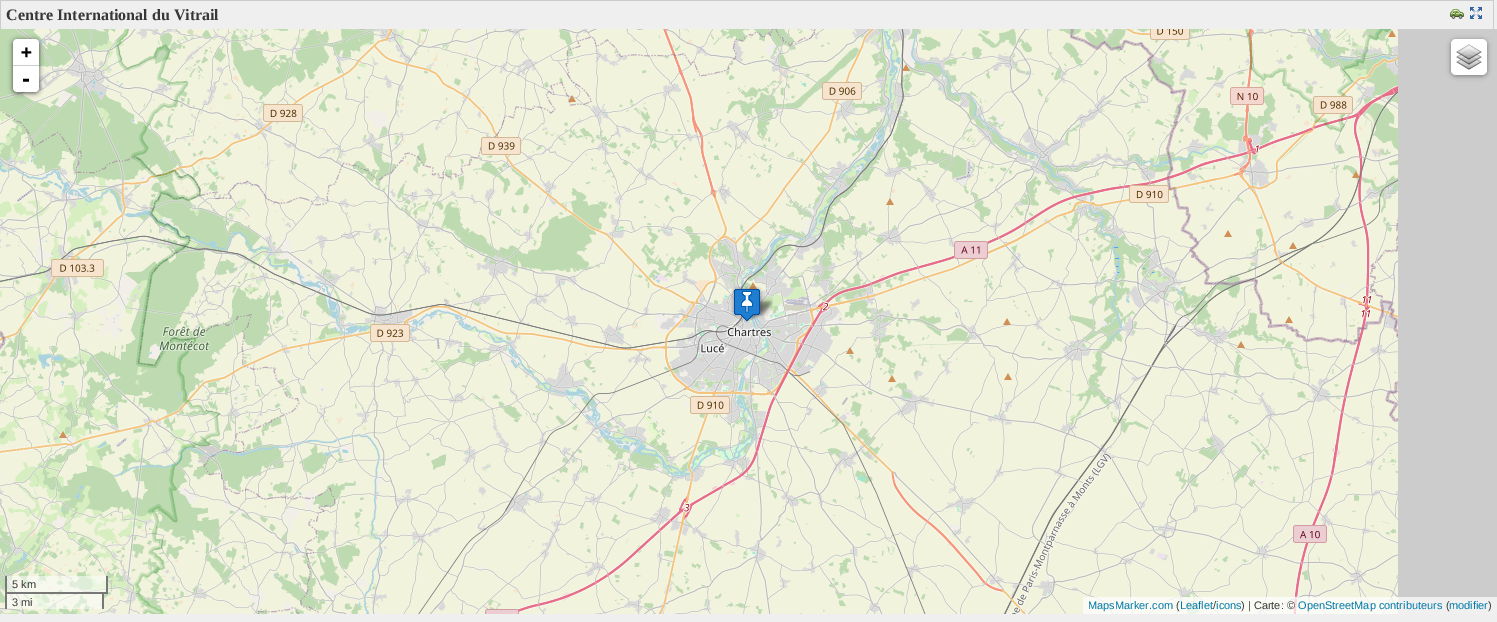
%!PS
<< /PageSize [1497 622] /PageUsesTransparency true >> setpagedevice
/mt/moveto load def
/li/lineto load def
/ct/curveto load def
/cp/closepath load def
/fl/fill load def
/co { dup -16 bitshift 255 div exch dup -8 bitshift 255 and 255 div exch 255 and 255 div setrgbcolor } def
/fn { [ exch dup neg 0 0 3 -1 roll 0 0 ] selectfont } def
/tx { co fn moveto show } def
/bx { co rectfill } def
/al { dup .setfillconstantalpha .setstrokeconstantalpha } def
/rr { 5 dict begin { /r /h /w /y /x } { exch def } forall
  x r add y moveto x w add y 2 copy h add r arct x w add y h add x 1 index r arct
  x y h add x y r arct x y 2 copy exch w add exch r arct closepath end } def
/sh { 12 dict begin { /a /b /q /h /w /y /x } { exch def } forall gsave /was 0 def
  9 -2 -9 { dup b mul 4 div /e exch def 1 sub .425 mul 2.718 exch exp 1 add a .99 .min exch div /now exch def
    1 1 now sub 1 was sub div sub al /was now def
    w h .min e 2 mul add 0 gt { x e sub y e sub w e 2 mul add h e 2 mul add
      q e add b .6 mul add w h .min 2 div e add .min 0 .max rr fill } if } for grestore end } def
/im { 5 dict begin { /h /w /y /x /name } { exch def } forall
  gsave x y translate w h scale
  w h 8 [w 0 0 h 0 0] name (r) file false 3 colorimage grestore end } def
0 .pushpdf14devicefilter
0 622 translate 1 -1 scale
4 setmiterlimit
0 0 1497 622 16#EFEFEF bx
0 0 1494 1 16#CCCCCC bx
1493 0 1 29 16#CCCCCC bx
0 0 1 29 16#CCCCCC bx
(media/1.raw) 1450 9 14 10 im
(media/2.raw) 1470 7 12 12 im
1398 29 99 585 16#CCCCCC bx
(media/3.raw) 0 29 118 15 im
(media/4.raw) 118 29 256 15 im
(media/5.raw) 374 29 256 15 im
(media/6.raw) 630 29 256 15 im
(media/7.raw) 886 29 256 15 im
(media/8.raw) 1142 29 256 15 im
(media/9.raw) 0 44 118 256 im
(media/10.raw) 118 44 256 256 im
(media/11.raw) 374 44 256 256 im
(media/12.raw) 630 44 256 256 im
(media/13.raw) 886 44 256 256 im
(media/14.raw) 1142 44 256 256 im
(media/15.raw) 0 300 118 256 im
(media/16.raw) 118 300 256 256 im
(media/17.raw) 374 300 256 256 im
(media/18.raw) 630 300 256 256 im
(media/19.raw) 886 300 256 256 im
(media/20.raw) 1142 300 256 256 im
(media/21.raw) 0 556 118 58 im
(media/22.raw) 118 556 256 58 im
(media/23.raw) 374 556 256 58 im
(media/24.raw) 630 556 256 58 im
(media/25.raw) 886 556 256 58 im
(media/26.raw) 1142 556 256 58 im
(media/28.raw) 749 296 24 24 im
(media/27.raw) 731 286 32 37 im
16#000000 co
13 40 26 53 4 2.5 .65 sh
16#FFFFFF co
17 39 mt 35 39 li 37 39 39 41 39 43 ct 39 66 li 13 66 li 13 43 li 13 41 15 39 17 39 ct cp fl
13 65 26 1 16#CCCCCC bx
16#FFFFFF co
13 66 mt 39 66 li 39 88 li 39 90 37 92 35 92 ct 17 92 li 15 92 13 90 13 88 ct cp fl
16#000000 co
1451 40 36 36 5 2.5 .4 sh
16#FFFFFF co
1451 39 36 36 5 rr fl
(media/29.raw) 1456 44 26 26 im
0.5 al
7 576 99 16 16#FFFFFF bx
1 al
106 576 2 18 16#777777 bx
104 592 4 2 16#777777 bx
5 576 2 18 16#777777 bx
0.5 al
7 594 95 15 16#FFFFFF bx
1 al
5 592 99 2 16#777777 bx
102 592 2 17 16#777777 bx
5 592 2 17 16#777777 bx
0.7 al
1083 597 414 17 16#FFFFFF bx
1 al
(Centre International du Vitrail) 6 20 /LiberationSerif-Bold 16 16#373737 tx
(+) 21 58 /DejaVuSansMono-Bold 18 16#000000 tx
(-) 20 86 /DejaVuSansMono-Bold 20 16#000000 tx
(5 km) 12 588 /LiberationSans-Regular 11 16#373737 tx
(3 mi) 12 606 /LiberationSans-Regular 11 16#373737 tx
(MapsMarker.com) 1088 609 /LiberationSans-Regular 11 16#0078A8 tx
(\() 1176 609 /LiberationSans-Regular 11 16#373737 tx
(Leaflet icons) 1180 609 /LiberationSans-Regular 11 16#0078A8 tx
(/) 1213 609 /LiberationSans-Regular 11 16#373737 tx
(\) | Carte: ©) 1241 609 /LiberationSans-Regular 11 16#373737 tx
(OpenStreetMap contributeurs) 1298 609 /LiberationSans-Regular 11 16#0078A8 tx
(\() 1446 609 /LiberationSans-Regular 11 16#373737 tx
(modifier) 1449 609 /LiberationSans-Regular 11 16#0078A8 tx
(\)) 1488 609 /LiberationSans-Regular 11 16#373737 tx
.poppdf14devicefilter showpage
